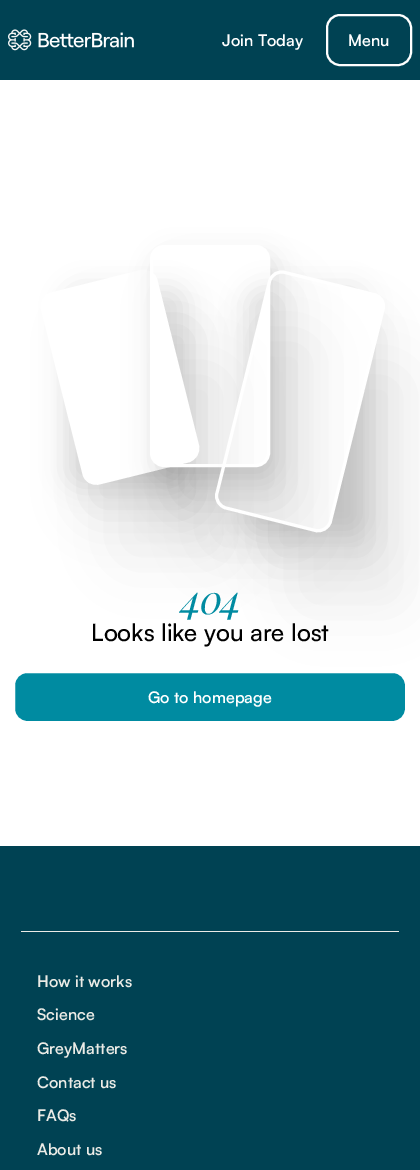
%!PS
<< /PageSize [420 1170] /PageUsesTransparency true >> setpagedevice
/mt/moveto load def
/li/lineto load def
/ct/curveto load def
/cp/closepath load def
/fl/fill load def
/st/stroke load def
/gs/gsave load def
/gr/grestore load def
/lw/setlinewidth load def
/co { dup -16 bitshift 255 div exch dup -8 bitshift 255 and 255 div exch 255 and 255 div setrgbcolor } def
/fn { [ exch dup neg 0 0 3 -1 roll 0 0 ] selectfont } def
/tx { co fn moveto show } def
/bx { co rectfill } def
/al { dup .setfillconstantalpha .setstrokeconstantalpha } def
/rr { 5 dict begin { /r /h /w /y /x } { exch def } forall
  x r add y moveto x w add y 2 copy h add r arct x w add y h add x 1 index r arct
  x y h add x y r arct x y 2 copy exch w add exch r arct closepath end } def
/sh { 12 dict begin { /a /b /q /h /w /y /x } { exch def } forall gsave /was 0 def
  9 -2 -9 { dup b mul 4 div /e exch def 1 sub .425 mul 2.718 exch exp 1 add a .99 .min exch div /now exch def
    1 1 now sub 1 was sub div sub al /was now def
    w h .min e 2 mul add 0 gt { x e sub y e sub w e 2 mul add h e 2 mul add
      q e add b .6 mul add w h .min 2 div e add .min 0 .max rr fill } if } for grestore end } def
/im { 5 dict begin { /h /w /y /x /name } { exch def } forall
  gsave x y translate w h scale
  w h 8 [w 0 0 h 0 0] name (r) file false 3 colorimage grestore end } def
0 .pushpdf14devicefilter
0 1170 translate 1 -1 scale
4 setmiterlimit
0 0 420 1170 16#FFFFFF bx
0 0 420 80 16#004253 bx
(media/1.raw) 8 29 126 22 im
16#FFFFFF co
2 lw
327 15 84 50 13 rr st
gs
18 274 mt 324 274 li 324 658 li 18 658 li cp 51.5 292.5 mt 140.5 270 li 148 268 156 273 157.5 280.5 ct 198.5 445 li 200.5 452.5 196 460.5 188.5 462 ct 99.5 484.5 li 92 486.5 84 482 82.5 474.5 ct 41 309.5 li 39.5 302 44 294 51.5 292.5 ct cp eoclip newpath
16#000000 co
111 367 120 198 14 30.5 .05 sh
gr
gs
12 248 mt 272 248 li 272 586 li 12 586 li cp 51.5 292.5 mt 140.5 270 li 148 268 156 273 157.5 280.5 ct 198.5 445 li 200.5 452.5 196 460.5 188.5 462 ct 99.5 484.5 li 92 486.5 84 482 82.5 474.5 ct 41 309.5 li 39.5 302 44 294 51.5 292.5 ct cp eoclip newpath
16#000000 co
82 318 120 198 14 23 .09 sh
gr
gs
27 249 mt 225 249 li 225 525 li 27 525 li cp 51.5 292.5 mt 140.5 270 li 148 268 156 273 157.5 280.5 ct 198.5 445 li 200.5 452.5 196 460.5 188.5 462 ct 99.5 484.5 li 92 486.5 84 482 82.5 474.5 ct 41 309.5 li 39.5 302 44 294 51.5 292.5 ct cp eoclip newpath
16#000000 co
66 288 120 198 14 12.5 .1 sh
gr
3 lw
51.5 294 mt 141 271.5 li 147.5 270 154.5 274 156 280.5 ct 197.5 445.5 li 199 452.5 195 459 188 461 ct 99 483 li 92 484.5 85.5 480.5 84 474 ct 42.5 309 li 41 302.5 45 295.5 51.5 294 ct cp st
gs
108 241 mt 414 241 li 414 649 li 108 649 li cp 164 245 mt 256 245 li 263.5 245 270 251.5 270 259 ct 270 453 li 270 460.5 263.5 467 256 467 ct 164 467 li 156.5 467 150 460.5 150 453 ct 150 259 li 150 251.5 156.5 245 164 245 ct cp eoclip newpath
16#000000 co
201 334 120 222 14 30.5 .05 sh
gr
gs
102 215 mt 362 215 li 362 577 li 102 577 li cp 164 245 mt 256 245 li 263.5 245 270 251.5 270 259 ct 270 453 li 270 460.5 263.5 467 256 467 ct 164 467 li 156.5 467 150 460.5 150 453 ct 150 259 li 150 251.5 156.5 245 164 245 ct cp eoclip newpath
16#000000 co
172 285 120 222 14 23 .09 sh
gr
gs
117 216 mt 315 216 li 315 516 li 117 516 li cp 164 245 mt 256 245 li 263.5 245 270 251.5 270 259 ct 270 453 li 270 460.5 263.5 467 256 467 ct 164 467 li 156.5 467 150 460.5 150 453 ct 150 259 li 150 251.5 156.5 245 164 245 ct cp eoclip newpath
16#000000 co
156 255 120 222 14 12.5 .1 sh
gr
151.5 246.5 117 219 12.5 rr st
16#008BA1 co
14 672 392 50 13 rr gs fl gr
16#FFFFFF co
2 lw
st
gs
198 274 mt 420 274 li 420 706 li 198 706 li cp 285 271 mt 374.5 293 li 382 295 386.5 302.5 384.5 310 ct 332 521.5 li 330 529 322.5 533.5 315 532 ct 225.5 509.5 li 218 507.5 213.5 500 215.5 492.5 ct 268 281 li 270 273.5 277.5 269 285 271 ct cp eoclip newpath
16#000000 co
291 367 120 246 14 30.5 .05 sh
gr
gs
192 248 mt 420 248 li 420 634 li 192 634 li cp 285 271 mt 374.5 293 li 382 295 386.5 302.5 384.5 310 ct 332 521.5 li 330 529 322.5 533.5 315 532 ct 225.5 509.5 li 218 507.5 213.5 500 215.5 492.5 ct 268 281 li 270 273.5 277.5 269 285 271 ct cp eoclip newpath
16#000000 co
262 318 120 246 14 23 .09 sh
gr
gs
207 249 mt 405 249 li 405 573 li 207 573 li cp 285 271 mt 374.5 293 li 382 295 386.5 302.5 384.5 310 ct 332 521.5 li 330 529 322.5 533.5 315 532 ct 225.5 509.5 li 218 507.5 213.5 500 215.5 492.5 ct 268 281 li 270 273.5 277.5 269 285 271 ct cp eoclip newpath
16#000000 co
246 288 120 246 14 12.5 .1 sh
gr
3 lw
285 272.5 mt 374 294.5 li 381 296 385 303 383 309.5 ct 330.5 521 li 329 528 322 532 315.5 530.5 ct 226 508 li 219.5 506.5 215 499.5 217 493 ct 269.5 281.5 li 271.5 274.5 278 270.5 285 272.5 ct cp st
0 846 420 324 16#004253 bx
21 931 378 1 16#EBEBE6 bx
(Join Today) 222 46 /Satoshi-SemiBold 16 16#FFFFFF tx
(Menu) 348 46 /Satoshi-SemiBold 16 16#FFFFFF tx
/PlayfairDisplay-Italic 40 fn
16#008BA1 co
181 614 mt -1.5 0 (404) ashow
(Looks like you are lost) 91 641 /Satoshi-Medium 24 16#000000 tx
(Go to homepage) 148 703 /Satoshi-SemiBold 16 16#FFFFFF tx
(How it works) 37 987 /Satoshi-SemiBold 16 16#EBEBE6 tx
(Science) 37 1020 /Satoshi-SemiBold 16 16#EBEBE6 tx
(GreyMatters) 37 1054 /Satoshi-SemiBold 16 16#EBEBE6 tx
(Contact us) 37 1088 /Satoshi-SemiBold 16 16#EBEBE6 tx
(FAQs) 37 1121 /Satoshi-SemiBold 16 16#EBEBE6 tx
(About us) 37 1155 /Satoshi-SemiBold 16 16#EBEBE6 tx
.poppdf14devicefilter showpage
